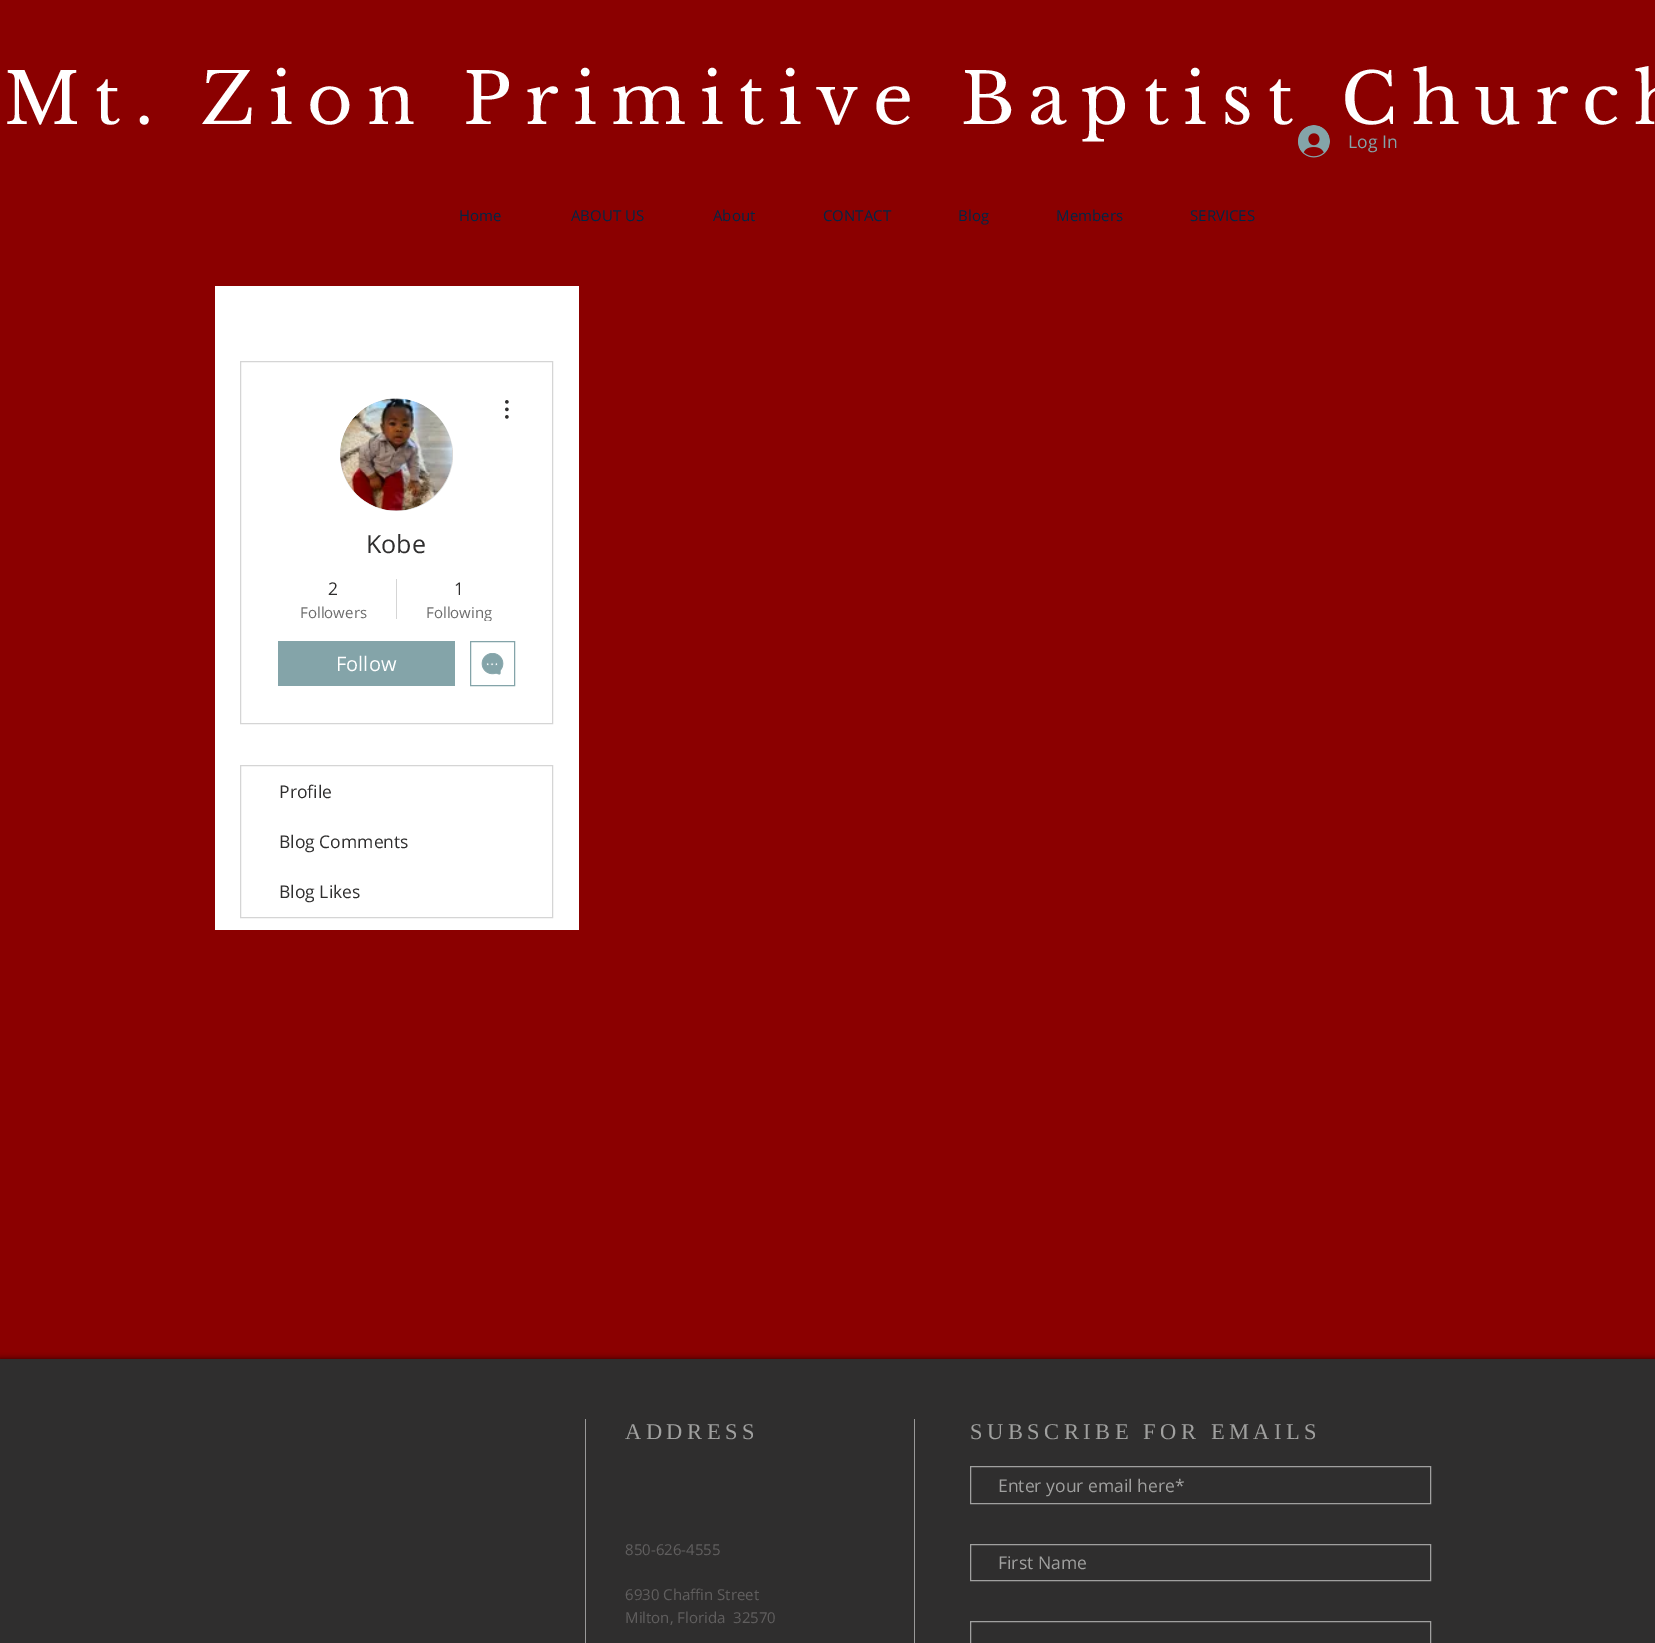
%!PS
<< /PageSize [1655 1643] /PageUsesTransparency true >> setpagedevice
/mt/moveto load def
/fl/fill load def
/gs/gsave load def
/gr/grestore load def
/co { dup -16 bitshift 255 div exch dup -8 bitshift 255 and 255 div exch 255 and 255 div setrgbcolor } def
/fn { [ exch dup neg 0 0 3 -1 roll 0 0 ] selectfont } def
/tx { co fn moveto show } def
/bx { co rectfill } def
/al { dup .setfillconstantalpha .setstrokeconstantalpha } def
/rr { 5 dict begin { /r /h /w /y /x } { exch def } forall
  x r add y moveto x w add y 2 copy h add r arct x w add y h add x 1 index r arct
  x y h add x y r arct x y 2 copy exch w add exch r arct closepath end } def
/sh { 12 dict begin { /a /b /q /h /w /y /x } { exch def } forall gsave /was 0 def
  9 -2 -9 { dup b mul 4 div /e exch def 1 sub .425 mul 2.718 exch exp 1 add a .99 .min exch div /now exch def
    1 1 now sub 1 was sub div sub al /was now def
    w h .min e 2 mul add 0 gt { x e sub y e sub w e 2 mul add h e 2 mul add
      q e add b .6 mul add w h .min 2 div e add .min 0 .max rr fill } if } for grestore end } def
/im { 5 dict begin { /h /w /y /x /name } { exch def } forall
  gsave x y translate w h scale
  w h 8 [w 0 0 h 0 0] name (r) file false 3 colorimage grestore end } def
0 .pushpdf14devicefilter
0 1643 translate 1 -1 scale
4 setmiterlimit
0 0 1655 1643 16#8B0000 bx
215 286 364 644 16#FFFFFF bx
16#D5D5D5 co
240.5 361.5 312 362 rectstroke
16#D8D8D8 co
340 399 113 112 56 rr fl
(media/2.raw) 340 398 112 113 im
(media/3.raw) 505 400 4 19 im
396 579 1 40 16#D5D5D5 bx
278 641 177 45 16#84A4A9 bx
470.5 641.5 44 44 rectstroke
(media/4.raw) 481 653 23 22 im
16#D5D5D5 co
240.5 765.5 312 152 rectstroke
16#000000 co
0 1359 1655 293 0 3 .7 sh
0 1359 1655 284 16#2F2E2E bx
585 1419 1 224 16#999999 bx
914 1419 1 224 16#999999 bx
16#A0A09F co
970.5 1466.5 460 37 rectstroke
970.5 1544.5 460 36 rectstroke
970.5 1621.5 460 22 rectstroke
/LibreBaskerville-Regular 70 fn
16#FFFFFF co
4 124 mt 14 0 (Mt. Zion Primitive Baptist Church) ashow
(media/1.raw) 1298 125 32 33 im
(Log In) 1348 148 /OpenSans-Regular 17.5 16#84A4A9 tx
(Home) 459 221 /OpenSans-Regular 15 16#012646 tx
(ABOUT US) 571 221 /OpenSans-Regular 15 16#012646 tx
(About) 713 221 /OpenSans-Regular 15 16#012646 tx
(CONTACT) 823 221 /OpenSans-Regular 15 16#012646 tx
(Blog) 958 221 /OpenSans-Regular 15 16#012646 tx
(Members) 1056 221 /OpenSans-Regular 15 16#012646 tx
(SERVICES) 1190 221 /OpenSans-Regular 15 16#012646 tx
(Kobe) 366 553 /OpenSans-Regular 25 16#2F2E2E tx
(2) 328 595 /OpenSans-Regular 17.5 16#2F2E2E tx
(Followers) 300 618 /OpenSans-Regular 15 16#6D6D6D tx
(1) 454 595 /OpenSans-Regular 17.5 16#2F2E2E tx
gs
426 601 67 20 rectclip
(Following) 426 618 /OpenSans-Regular 15 16#6D6D6D tx
gr
(Follow) 336 671 /OpenSans-Regular 20 16#FFFFFF tx
(Profile) 279 798 /OpenSans-Regular 17.5 16#2F2E2E tx
(Blog Comments) 279 848 /OpenSans-Regular 17.5 16#2F2E2E tx
(Blog Likes) 279 898 /OpenSans-Regular 17.5 16#2F2E2E tx
/LiberationSerif-Regular 22.5 fn
16#A0A09F co
625 1439 mt 4.5 0 (ADDRESS) ashow
970 1439 mt 4.5 0 (SUBSCRIBE FOR EMAILS) ashow
(Enter your email here*) 998 1492 /OpenSans-Regular 17.5 16#A0A09F tx
(First Name) 998 1569 /OpenSans-Regular 17.5 16#A0A09F tx
(850-626-4555) 625 1555 /OpenSans-Regular 15 16#605E5E tx
(6930 Chaffin Street) 625 1600 /OpenSans-Regular 15 16#605E5E tx
(Milton, Florida  32570) 625 1623 /OpenSans-Regular 15 16#605E5E tx
.poppdf14devicefilter showpage
